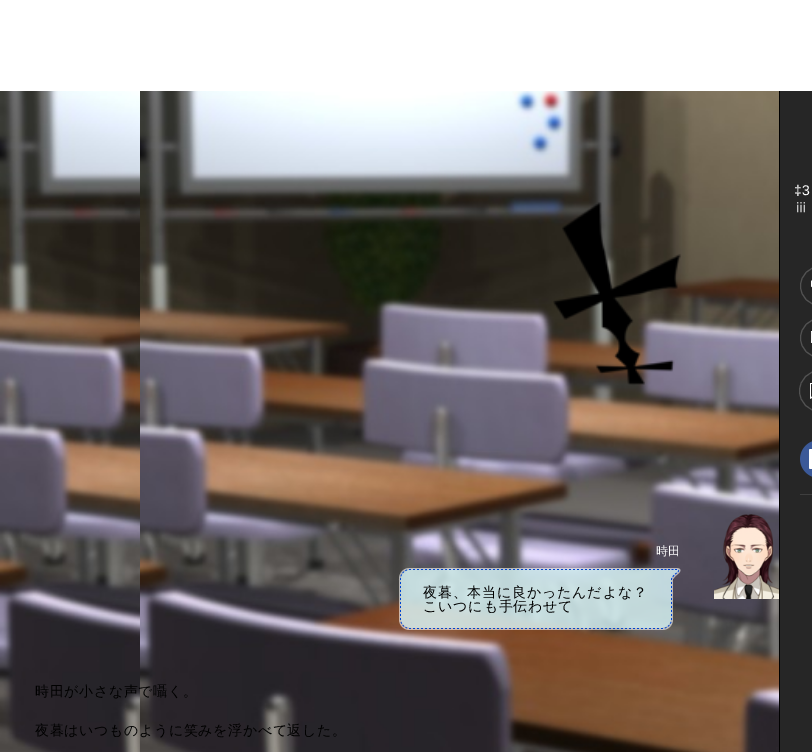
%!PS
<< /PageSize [812 752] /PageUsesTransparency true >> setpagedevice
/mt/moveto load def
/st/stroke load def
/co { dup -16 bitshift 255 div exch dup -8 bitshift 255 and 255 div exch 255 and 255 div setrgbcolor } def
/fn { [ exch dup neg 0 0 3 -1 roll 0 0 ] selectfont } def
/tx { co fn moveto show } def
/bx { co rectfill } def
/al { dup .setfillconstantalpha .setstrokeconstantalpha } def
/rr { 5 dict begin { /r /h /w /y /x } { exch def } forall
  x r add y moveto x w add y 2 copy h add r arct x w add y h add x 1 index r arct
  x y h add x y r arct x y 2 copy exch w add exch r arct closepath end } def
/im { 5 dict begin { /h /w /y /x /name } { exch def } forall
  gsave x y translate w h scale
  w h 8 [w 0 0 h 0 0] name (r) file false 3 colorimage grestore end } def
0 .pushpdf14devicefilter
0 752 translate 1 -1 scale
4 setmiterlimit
0 0 812 752 16#FFFFFF bx
780 91 32 661 16#262626 bx
779 91 1 661 16#000000 bx
16#525252 co
800.5 266.5 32 39 19.5 rr st
(media/1.raw) 811 280 1 8 im
800.5 318.5 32 39 19.5 rr st
(media/2.raw) 811 331 1 12 im
799.5 370.5 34 41 20.5 rr st
(media/3.raw) 810 383 2 16 im
800 494 12 1 16#3E3E3E bx
(media/4.raw) 800 441 12 36 im
(media/5.raw) 0 91 140 661 im
(media/6.raw) 140 91 639 661 im
(media/7.raw) 553 202 128 183 im
(media/8.raw) 399 568 11 11 im
(media/9.raw) 410 568 252 11 im
(media/10.raw) 662 568 19 11 im
(media/11.raw) 398 579 12 40 im
0.8 al
410 579 252 40 16#DFFCFF bx
1 al
(media/12.raw) 662 579 11 40 im
(media/13.raw) 399 619 11 11 im
(media/14.raw) 410 619 252 11 im
(media/15.raw) 662 619 11 11 im
(media/16.raw) 714 514 65 85 im
(‡3) 794 195 /LiberationSans-Regular 14 16#FFFFFF tx
(ⅲ) 794 212 /WenQuanYiZenHei-Medium 14 16#FFFFFF tx
(時田) 656 555 /WenQuanYiZenHei-Medium 12 16#FFFFFF tx
/WenQuanYiZenHei-Medium 14 fn
16#000000 co
423 597 mt .8 0 (夜暮、本当に良かったんだよな？) ashow
423 611 mt .8 0 (こいつにも手伝わせて) ashow
35 696 mt .6 0 (時田が小さな声で囁く。) ashow
35 735 mt .6 0 (夜暮はいつものように笑みを浮かべて返した。) ashow
.poppdf14devicefilter showpage
